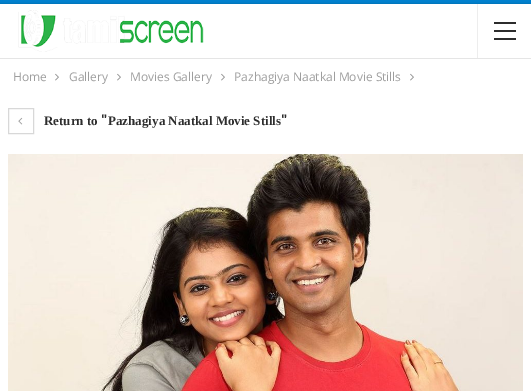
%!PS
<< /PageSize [531 391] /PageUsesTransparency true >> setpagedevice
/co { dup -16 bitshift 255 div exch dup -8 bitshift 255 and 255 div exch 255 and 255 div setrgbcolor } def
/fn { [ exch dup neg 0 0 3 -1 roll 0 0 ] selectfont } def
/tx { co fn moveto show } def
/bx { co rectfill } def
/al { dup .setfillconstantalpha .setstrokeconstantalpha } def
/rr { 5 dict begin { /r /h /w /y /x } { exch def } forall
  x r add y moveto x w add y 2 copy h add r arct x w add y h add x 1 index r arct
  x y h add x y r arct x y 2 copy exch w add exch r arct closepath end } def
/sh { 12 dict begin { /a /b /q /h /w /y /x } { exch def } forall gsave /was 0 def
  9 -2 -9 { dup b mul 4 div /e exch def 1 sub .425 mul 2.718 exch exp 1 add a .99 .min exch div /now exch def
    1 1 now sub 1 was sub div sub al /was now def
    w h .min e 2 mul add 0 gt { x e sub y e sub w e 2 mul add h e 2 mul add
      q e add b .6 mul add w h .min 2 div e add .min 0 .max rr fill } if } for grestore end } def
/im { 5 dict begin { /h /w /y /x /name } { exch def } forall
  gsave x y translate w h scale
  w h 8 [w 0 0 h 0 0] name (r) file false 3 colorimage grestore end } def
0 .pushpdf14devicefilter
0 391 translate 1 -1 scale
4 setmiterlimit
0 0 531 391 16#0080CE bx
16#000000 co
0 4 531 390 0 1 .27 sh
0 4 531 387 16#FFFFFF bx
0 58 531 1 16#E5E5E5 bx
(media/1.raw) 18 10 186 42 im
477 4 1 54 16#EDEDED bx
494 30 22 2 16#2C2C2C bx
494 22 22 2 16#2C2C2C bx
494 38 22 2 16#2C2C2C bx
(media/2.raw) 55 73 4 8 im
(media/2.raw) 117 73 4 8 im
(media/2.raw) 221 73 4 8 im
(media/2.raw) 410 73 4 8 im
16#D8D8D8 co
8.5 108.5 25 25 rectstroke
(media/3.raw) 18 117 5 8 im
(media/4.raw) 8 154 515 237 im
(Home) 13 81 /OpenSans-Regular 12 16#9E9E9E tx
(Gallery) 69 81 /OpenSans-Regular 12 16#9E9E9E tx
(Movies Gallery) 130 81 /OpenSans-Regular 12 16#9E9E9E tx
(Pazhagiya Naatkal Movie Stills) 234 81 /OpenSans-Regular 12 16#9E9E9E tx
(Return to) 44 125 /LiberationSerif-Bold 13 16#2D2D2D tx
(") 101 125 /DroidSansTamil-Bold 13 16#2D2D2D tx
(Pazhagiya Naatkal Movie Stills) 108 125 /LiberationSerif-Bold 13 16#2D2D2D tx
(") 281 125 /DroidSansTamil-Bold 13 16#2D2D2D tx
.poppdf14devicefilter showpage
